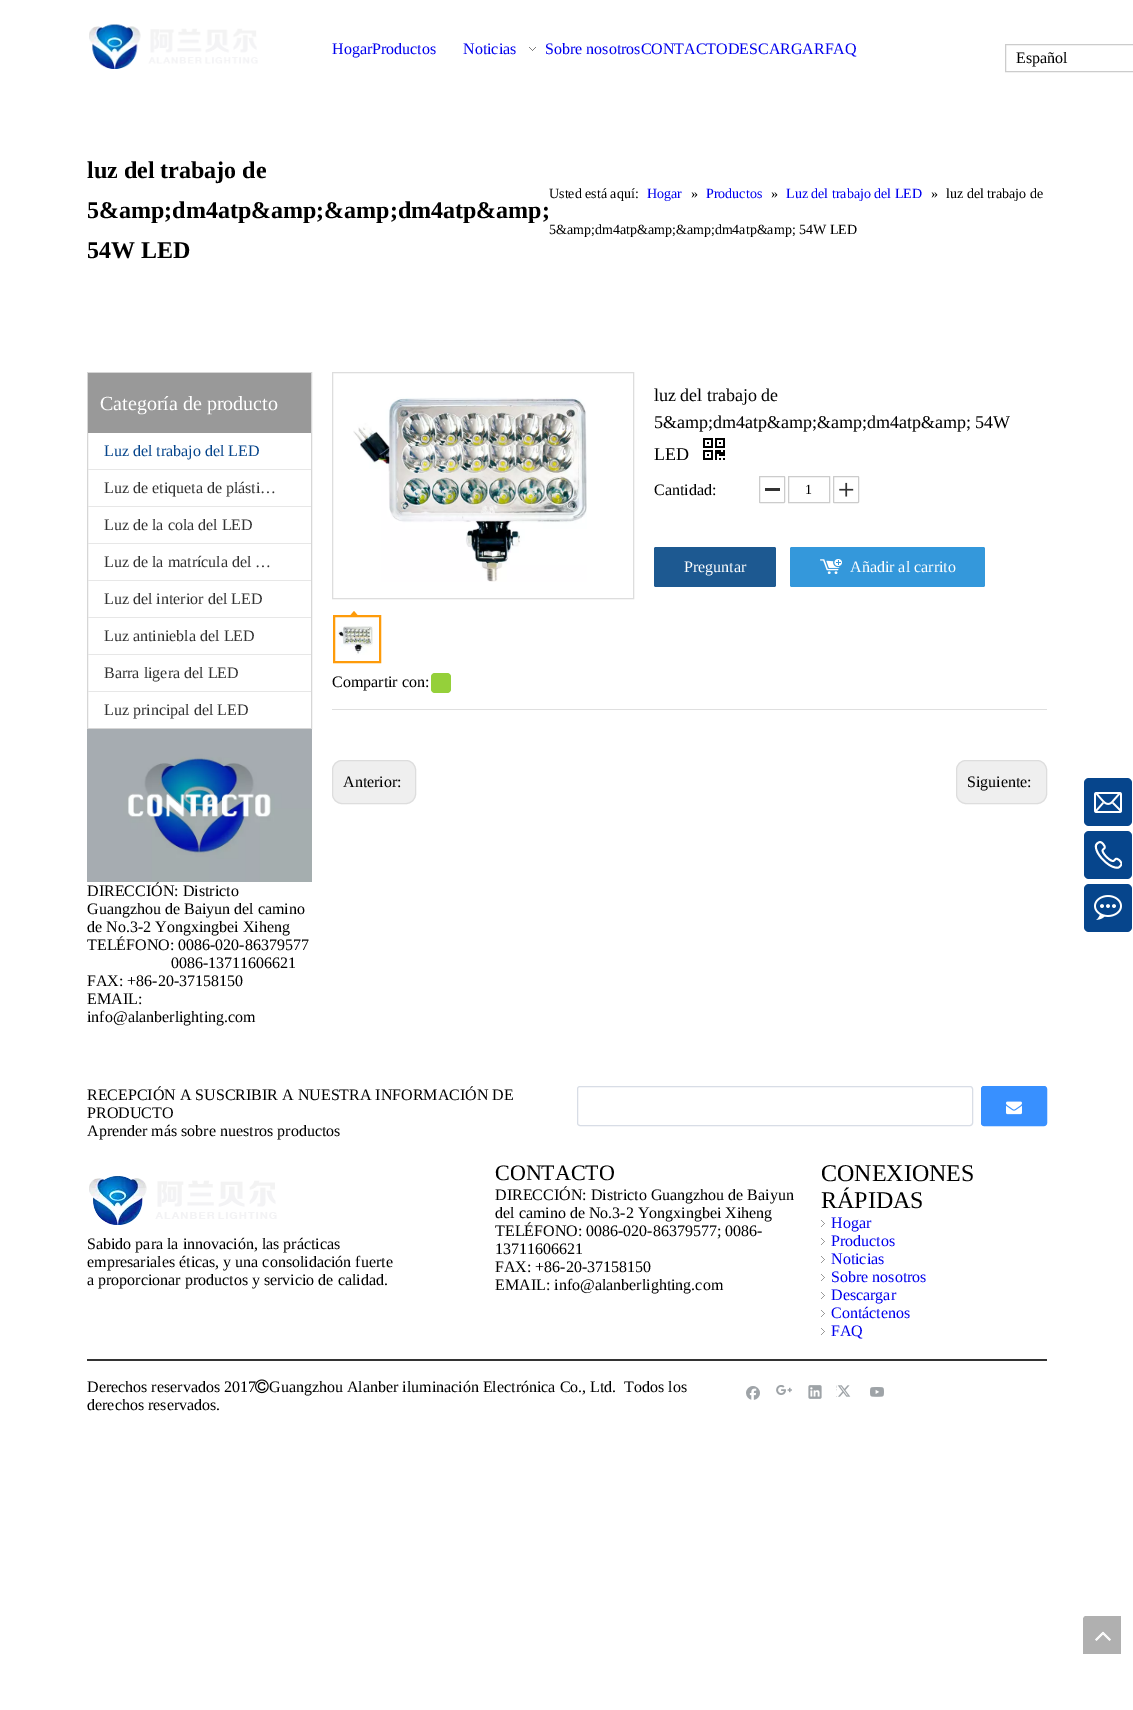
%!PS
<< /PageSize [1133 1710] >> setpagedevice
/mt/moveto load def
/li/lineto load def
/cp/closepath load def
/fl/fill load def
/st/stroke load def
/gs/gsave load def
/gr/grestore load def
/lw/setlinewidth load def
/co { dup -16 bitshift 255 div exch dup -8 bitshift 255 and 255 div exch 255 and 255 div setrgbcolor } def
/fn { [ exch dup neg 0 0 3 -1 roll 0 0 ] selectfont } def
/tx { co fn moveto show } def
/bx { co rectfill } def
/rr { 5 dict begin { /r /h /w /y /x } { exch def } forall
  x r add y moveto x w add y 2 copy h add r arct x w add y h add x 1 index r arct
  x y h add x y r arct x y 2 copy exch w add exch r arct closepath end } def
/im { 5 dict begin { /h /w /y /x /name } { exch def } forall
  gsave x y translate w h scale
  w h 8 [w 0 0 h 0 0] name (r) file false 3 colorimage grestore end } def
0 1710 translate 1 -1 scale
4 setmiterlimit
0 0 1133 1710 16#FFFFFF bx
(media/1.raw) 89 24 169 45 im
(media/2.raw) 529 47 7 4 im
16#CCCCCC co
1005.5 44.5 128 27 rectstroke
16#D6D6D6 co
87.5 372.5 224 356 rectstroke
88 373 223 60 16#999999 bx
88 469 223 1 16#E7E7E7 bx
88 506 223 1 16#E7E7E7 bx
88 543 223 1 16#E7E7E7 bx
88 580 223 1 16#E7E7E7 bx
88 617 223 1 16#E7E7E7 bx
88 654 223 1 16#E7E7E7 bx
88 691 223 1 16#E7E7E7 bx
(media/3.raw) 87 729 225 153 im
(media/4.raw) 703 438 22 22 im
765 488 15 3 16#333333 bx
16#CCCCCC co
759.5 476.5 25 26 .5 rr st
788.5 476.5 41 26 rectstroke
(media/5.raw) 839 482 15 15 im
833.5 476.5 25 26 .5 rr st
16#1D5991 co
654 547 122 40 2 rr fl
16#3498DB co
790 547 195 40 2 rr fl
(media/6.raw) 820 559 22 15 im
16#DDDDDD co
332.5 372.5 301 226 rectstroke
(media/7.raw) 353 397 234 185 im
16#FE9B0A co
2 lw
334 616 46 46 rectstroke
359 617 mt 349 617 li 354 611 li cp fl
(media/8.raw) 338 626 35 29 im
16#95D03A co
431 673 20 20 4 rr fl
332 709 715 1 16#DFDFDF bx
16#EFEFEF co
332.5 760.5 83 43 9.5 rr gs fl gr
16#DDDDDD co
1 lw
st
16#EFEFEF co
956.5 760.5 90 43 9.5 rr gs fl gr
16#DDDDDD co
st
16#D8DDE6 co
577.5 1086.5 395 39 2.5 rr st
16#3890FF co
981.5 1086.5 65 39 2.5 rr gs fl gr
st
(media/9.raw) 1006 1101 16 14 im
(media/10.raw) 89 1176 188 49 im
16#06458C co
1084 778 48 48 5 rr fl
(media/11.raw) 1094 792 28 21 im
1084 831 48 48 5 rr fl
(media/12.raw) 1094 841 28 28 im
1084 884 48 48 5 rr fl
(media/13.raw) 1094 895 28 25 im
(media/14.raw) 821 1220 4 7 im
(media/14.raw) 821 1238 4 7 im
(media/14.raw) 821 1256 4 7 im
(media/14.raw) 821 1274 4 7 im
(media/14.raw) 821 1292 4 7 im
(media/14.raw) 821 1310 4 7 im
(media/14.raw) 821 1328 4 7 im
87 1359 960 2 16#333333 bx
(media/15.raw) 255 1379 14 15 im
(media/16.raw) 746 1386 14 14 im
(media/17.raw) 776 1385 16 10 im
(media/18.raw) 808 1385 14 14 im
(media/19.raw) 836 1385 15 12 im
(media/20.raw) 870 1387 14 10 im
(media/21.raw) 1083 1616 38 38 im
(HogarProductos) 332 54 /LiberationSerif-Regular 16 16#0000EE tx
(Noticias) 463 54 /LiberationSerif-Regular 16 16#0000EE tx
(Sobre nosotrosCONTACTODESCARGARFAQ) 545 54 /LiberationSerif-Regular 16 16#0000EE tx
(Español) 1016 63 /LiberationSerif-Regular 16 16#000000 tx
(luz del trabajo de) 87 178 /LiberationSerif-Bold 24 16#000000 tx
(5&amp;dm4atp&amp;&amp;dm4atp&amp;) 87 218 /LiberationSerif-Bold 24 16#000000 tx
(54W LED) 87 258 /LiberationSerif-Bold 24 16#000000 tx
(Usted está aquí:) 549 198 /LiberationSerif-Regular 14 16#000000 tx
(Hogar) 647 198 /LiberationSerif-Regular 14 16#0000EE tx
(») 691 198 /LiberationSerif-Regular 14 16#000000 tx
(Productos) 706 198 /LiberationSerif-Regular 14 16#0000EE tx
(») 771 198 /LiberationSerif-Regular 14 16#000000 tx
(Luz del trabajo del LED) 786 198 /LiberationSerif-Regular 14 16#0000EE tx
(») 931 198 /LiberationSerif-Regular 14 16#000000 tx
(luz del trabajo de) 946 198 /LiberationSerif-Regular 14 16#000000 tx
(5&amp;dm4atp&amp;&amp;dm4atp&amp; 54W LED) 549 234 /LiberationSerif-Regular 14 16#000000 tx
(Categoría de producto) 100 410 /LiberationSerif-Regular 20 16#FFFFFF tx
(Luz del trabajo del LED) 104 456 /LiberationSerif-Regular 16 16#06458C tx
(Luz de etiqueta de plásti…) 104 493 /LiberationSerif-Regular 16 16#333333 tx
(Luz de la cola del LED) 104 530 /LiberationSerif-Regular 16 16#333333 tx
(Luz de la matrícula del …) 104 567 /LiberationSerif-Regular 16 16#333333 tx
(Luz del interior del LED) 104 604 /LiberationSerif-Regular 16 16#333333 tx
(Luz antiniebla del LED) 104 641 /LiberationSerif-Regular 16 16#333333 tx
(Barra ligera del LED) 104 678 /LiberationSerif-Regular 16 16#333333 tx
(Luz principal del LED) 104 715 /LiberationSerif-Regular 16 16#333333 tx
(DIRECCIÓN: Districto) 87 896 /LiberationSerif-Regular 16 16#000000 tx
(Guangzhou de Baiyun del camino) 87 914 /LiberationSerif-Regular 16 16#000000 tx
(de No.3-2 Yongxingbei Xiheng) 87 932 /LiberationSerif-Regular 16 16#000000 tx
(TELÉFONO: 0086-020-86379577) 87 950 /LiberationSerif-Regular 16 16#000000 tx
(0086-13711606621) 171 968 /LiberationSerif-Regular 16 16#000000 tx
(FAX: +86-20-37158150) 87 986 /LiberationSerif-Regular 16 16#000000 tx
(EMAIL:) 87 1004 /LiberationSerif-Regular 16 16#000000 tx
(info@alanberlighting.com) 87 1022 /LiberationSerif-Regular 16 16#000000 tx
(luz del trabajo de) 654 401 /LiberationSerif-Regular 18 16#000000 tx
(5&amp;dm4atp&amp;&amp;dm4atp&amp; 54W) 654 428 /LiberationSerif-Regular 18 16#000000 tx
(LED) 654 460 /LiberationSerif-Regular 18 16#000000 tx
(Cantidad:) 654 495 /LiberationSerif-Regular 16 16#000000 tx
(1) 805 494 /LiberationSerif-Regular 14 16#000000 tx
(Preguntar) 684 572 /LiberationSerif-Regular 16 16#FFFFFF tx
(Añadir al carrito) 850 572 /LiberationSerif-Regular 16 16#FFFFFF tx
(Compartir con:) 332 687 /LiberationSerif-Regular 16 16#000000 tx
(Anterior:) 343 787 /LiberationSerif-Regular 16 16#000000 tx
(Siguiente:) 967 787 /LiberationSerif-Regular 16 16#000000 tx
(RECEPCIÓN A SUSCRIBIR A NUESTRA INFORMACIÓN DE) 87 1100 /LiberationSerif-Regular 16 16#000000 tx
(PRODUCTO) 87 1118 /LiberationSerif-Regular 16 16#000000 tx
(Aprender más sobre nuestros productos) 87 1136 /LiberationSerif-Regular 16 16#000000 tx
(Sabido para la innovación, las prácticas) 87 1249 /LiberationSerif-Regular 16 16#000000 tx
(empresariales éticas, y una consolidación fuerte) 87 1267 /LiberationSerif-Regular 16 16#000000 tx
(a proporcionar productos y servicio de calidad.) 87 1285 /LiberationSerif-Regular 16 16#000000 tx
(CONTACTO) 495 1180 /LiberationSerif-Regular 22 16#000000 tx
(DIRECCIÓN: Districto Guangzhou de Baiyun) 495 1200 /LiberationSerif-Regular 16 16#000000 tx
(del camino de No.3-2 Yongxingbei Xiheng) 495 1218 /LiberationSerif-Regular 16 16#000000 tx
(TELÉFONO: 0086-020-86379577; 0086-) 495 1236 /LiberationSerif-Regular 16 16#000000 tx
(13711606621) 495 1254 /LiberationSerif-Regular 16 16#000000 tx
(FAX: +86-20-37158150) 495 1272 /LiberationSerif-Regular 16 16#000000 tx
(EMAIL: info@alanberlighting.com) 495 1290 /LiberationSerif-Regular 16 16#000000 tx
(CONEXIONES) 821 1181 /LiberationSerif-Regular 24 16#000000 tx
(RÁPIDAS) 821 1208 /LiberationSerif-Regular 24 16#000000 tx
(Hogar) 831 1228 /LiberationSerif-Regular 16 16#0000EE tx
(Productos) 831 1246 /LiberationSerif-Regular 16 16#0000EE tx
(Noticias) 831 1264 /LiberationSerif-Regular 16 16#0000EE tx
(Sobre nosotros) 831 1282 /LiberationSerif-Regular 16 16#0000EE tx
(Descargar) 831 1300 /LiberationSerif-Regular 16 16#0000EE tx
(Contáctenos) 831 1318 /LiberationSerif-Regular 16 16#0000EE tx
(FAQ) 831 1336 /LiberationSerif-Regular 16 16#0000EE tx
(Derechos reservados 2017) 87 1392 /LiberationSerif-Regular 16 16#000000 tx
(Guangzhou Alanber iluminación Electrónica Co., Ltd.  Todos los) 269 1392 /LiberationSerif-Regular 16 16#000000 tx
(derechos reservados.) 87 1410 /LiberationSerif-Regular 16 16#000000 tx
showpage
